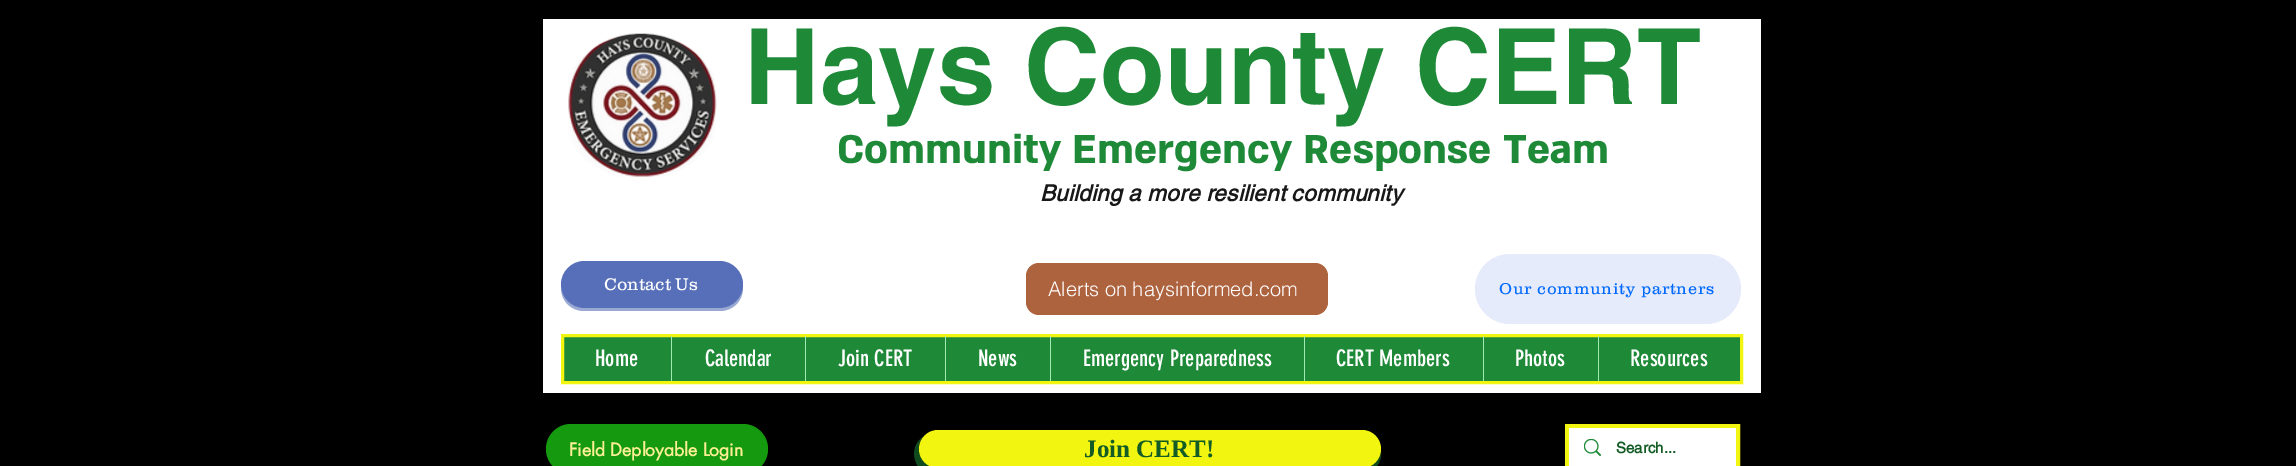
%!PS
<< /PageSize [2296 466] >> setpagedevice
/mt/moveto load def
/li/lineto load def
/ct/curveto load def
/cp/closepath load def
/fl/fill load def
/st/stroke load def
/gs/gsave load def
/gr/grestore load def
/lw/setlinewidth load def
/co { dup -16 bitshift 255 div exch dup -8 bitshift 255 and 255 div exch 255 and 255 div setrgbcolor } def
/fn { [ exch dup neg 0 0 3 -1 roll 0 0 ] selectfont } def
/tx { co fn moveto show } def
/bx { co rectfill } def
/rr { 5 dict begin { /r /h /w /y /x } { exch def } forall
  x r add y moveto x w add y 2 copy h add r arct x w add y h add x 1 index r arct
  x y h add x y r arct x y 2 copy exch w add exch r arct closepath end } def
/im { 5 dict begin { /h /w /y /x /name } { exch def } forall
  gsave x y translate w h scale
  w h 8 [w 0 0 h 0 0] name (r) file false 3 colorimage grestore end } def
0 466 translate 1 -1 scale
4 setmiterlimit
0 0 2296 466 16#000000 bx
543 19 1218 374 16#FFFFFF bx
(media/1.raw) 568 33 149 144 im
16#9AA9D4 co
561 285 mt 561 288 li 561 301 571 311 584 311 ct 720 311 li 733 311 743 301 743 288 ct 742 283 li 742 284 li 742 297 732 308 719 308 ct 584 308 li 572 308 561 297 561 285 ct cp fl
16#566FB8 co
561 261 182 47 23.5 rr fl
16#AE633F co
1026 263 302 52 13 rr fl
16#E5EBFA co
1475 254 266 70 35 rr fl
16#1E8A38 co
562.5 335.5 mt 1741.5 335.5 li 1741.5 382.5 li 562.5 382.5 li cp gs fl gr
16#F1F50F co
3 lw
st
671 336 1 45 16#A1EBB3 bx
805 336 1 45 16#A1EBB3 bx
945 336 1 45 16#A1EBB3 bx
1050 336 1 45 16#A1EBB3 bx
1304 336 1 45 16#A1EBB3 bx
1483 336 1 45 16#A1EBB3 bx
1598 336 1 45 16#A1EBB3 bx
16#14990F co
546 424 222 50 25 rr fl
16#104B1E co
923 437 mt 908 447 913 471 931 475 ct 955 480 981 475 1006 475 ct 1360 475 li 1372 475 1382 464 1381 452 ct 1380 459 1375 464 1369 466 ct 1362 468 li 938 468 li 922 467 913 448 923 437 ct cp fl
16#F1F50F co
919 430 462 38 19 rr fl
4 lw
1567 426 171 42 rectstroke
1569 428 167 38 16#FFFFFF bx
(media/2.raw) 1584 439 17 17 im
(Hays County CERT) 744 104 /helvetica-Bold 105 16#1E8A38 tx
(Community Emergency Response Team) 837 163 /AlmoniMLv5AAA-Bold 46.25 16#1E8A38 tx
/helvetica-BoldItalic 22.5 fn
16#181818 co
1040 201 mt .2 0 (Building a more resilient community) ashow
(Contact Us) 604 290 /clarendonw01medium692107-Light 17.5 16#FFFFFF tx
(Alerts on haysinformed.com) 1048 296 /helvetica-Light 20 16#FFFFFF tx
/clarendonw01medium692107-Light 16.25 fn
16#0069FF co
1499 294 mt .8 0 (Our community partners) ashow
(Home) 595 366 /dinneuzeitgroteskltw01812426-Regular 22.5 16#FFFFFF tx
(Calendar) 705 366 /dinneuzeitgroteskltw01812426-Regular 22.5 16#FFFFFF tx
(Join CERT) 838 366 /dinneuzeitgroteskltw01812426-Regular 22.5 16#FFFFFF tx
(News) 978 366 /dinneuzeitgroteskltw01812426-Regular 22.5 16#FFFFFF tx
(Emergency Preparedness) 1083 366 /dinneuzeitgroteskltw01812426-Regular 22.5 16#FFFFFF tx
(CERT Members) 1336 366 /dinneuzeitgroteskltw01812426-Regular 22.5 16#FFFFFF tx
(Photos) 1515 366 /dinneuzeitgroteskltw01812426-Regular 22.5 16#FFFFFF tx
(Resources) 1630 366 /dinneuzeitgroteskltw01812426-Regular 22.5 16#FFFFFF tx
(Field Deployable Login) 569 456 /futura-Bold 17.5 16#FFF094 tx
(Join CERT!) 1084 457 /LiberationSerif-Bold 25 16#145C25 tx
(Search...) 1616 453 /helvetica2-Bold 15 16#145C25 tx
showpage
